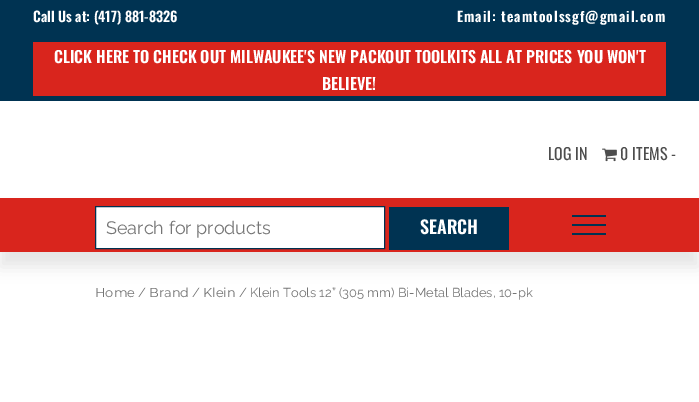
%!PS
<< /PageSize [699 402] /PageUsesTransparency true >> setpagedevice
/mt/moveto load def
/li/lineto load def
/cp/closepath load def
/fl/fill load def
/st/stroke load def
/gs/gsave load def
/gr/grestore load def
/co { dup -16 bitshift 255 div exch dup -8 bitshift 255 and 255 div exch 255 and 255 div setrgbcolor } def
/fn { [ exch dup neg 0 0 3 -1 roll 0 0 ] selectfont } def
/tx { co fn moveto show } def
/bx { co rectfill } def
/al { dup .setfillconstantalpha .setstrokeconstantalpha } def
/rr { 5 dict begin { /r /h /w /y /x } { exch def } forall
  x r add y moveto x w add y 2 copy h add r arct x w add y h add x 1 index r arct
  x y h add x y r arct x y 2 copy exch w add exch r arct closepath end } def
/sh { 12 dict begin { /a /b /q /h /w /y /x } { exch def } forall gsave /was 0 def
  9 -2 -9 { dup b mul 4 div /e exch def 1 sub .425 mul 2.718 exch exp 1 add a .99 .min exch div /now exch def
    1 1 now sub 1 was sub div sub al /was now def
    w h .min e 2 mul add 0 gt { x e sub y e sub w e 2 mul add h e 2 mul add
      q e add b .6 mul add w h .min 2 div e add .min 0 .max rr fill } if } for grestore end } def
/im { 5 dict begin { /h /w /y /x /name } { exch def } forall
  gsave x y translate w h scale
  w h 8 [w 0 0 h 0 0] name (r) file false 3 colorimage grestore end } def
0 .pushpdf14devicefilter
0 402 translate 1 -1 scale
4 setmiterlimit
0 0 699 402 16#FFFFFF bx
0 0 699 101 16#003352 bx
33 42 633 54 16#D9251D bx
(media/1.raw) 602 148 15 14 im
16#000000 co
0 213 699 54 0 7.5 .1 sh
0 198 699 54 16#D9251D bx
16#FFFFFF co
95.5 206.5 mt 384.5 206.5 li 384.5 248.5 li 95.5 248.5 li cp gs fl gr
16#003251 co
st
389 207 120 43 16#003352 bx
572 215 34 2 16#003352 bx
572 224 34 2 16#003352 bx
572 233 34 2 16#003352 bx
(Call Us at: \(417\) 881-8326) 33 22 /Oswald-SemiBold 14 16#FFFFFF tx
457 22 mt 1 0 (Email: teamtoolssgf@gmail.com) ashow
(CLICK HERE TO CHECK OUT MILWAUKEE'S NEW PACKOUT TOOLKITS ALL AT PRICES YOU WON'T) 54 63 /Oswald-SemiBold 16 16#FFFFFF tx
(BELIEVE!) 322 90 /Oswald-SemiBold 16 16#FFFFFF tx
(LOG IN) 548 160 /Oswald-Regular 16 16#4D4D4D tx
(0 ITEMS -) 620 160 /Oswald-Regular 16 16#4D4D4D tx
(Search for products) 106 234 /Raleway-Regular 18 16#757575 tx
(SEARCH) 420 234 /Oswald-SemiBold 18 16#FFFFFF tx
(Home) 95 297 /Montserrat-Thin 12.9 16#757575 tx
(/) 138 297 /Raleway-Regular 12.9 16#757575 tx
(Brand) 149 297 /Montserrat-Thin 12.9 16#757575 tx
(/) 192 297 /Raleway-Regular 12.9 16#757575 tx
(Klein) 203 297 /Montserrat-Thin 12.9 16#757575 tx
(/ Klein Tools 12” \(305 mm\) Bi-Metal Blades, 10-pk) 239 297 /Raleway-Regular 12.9 16#757575 tx
.poppdf14devicefilter showpage
